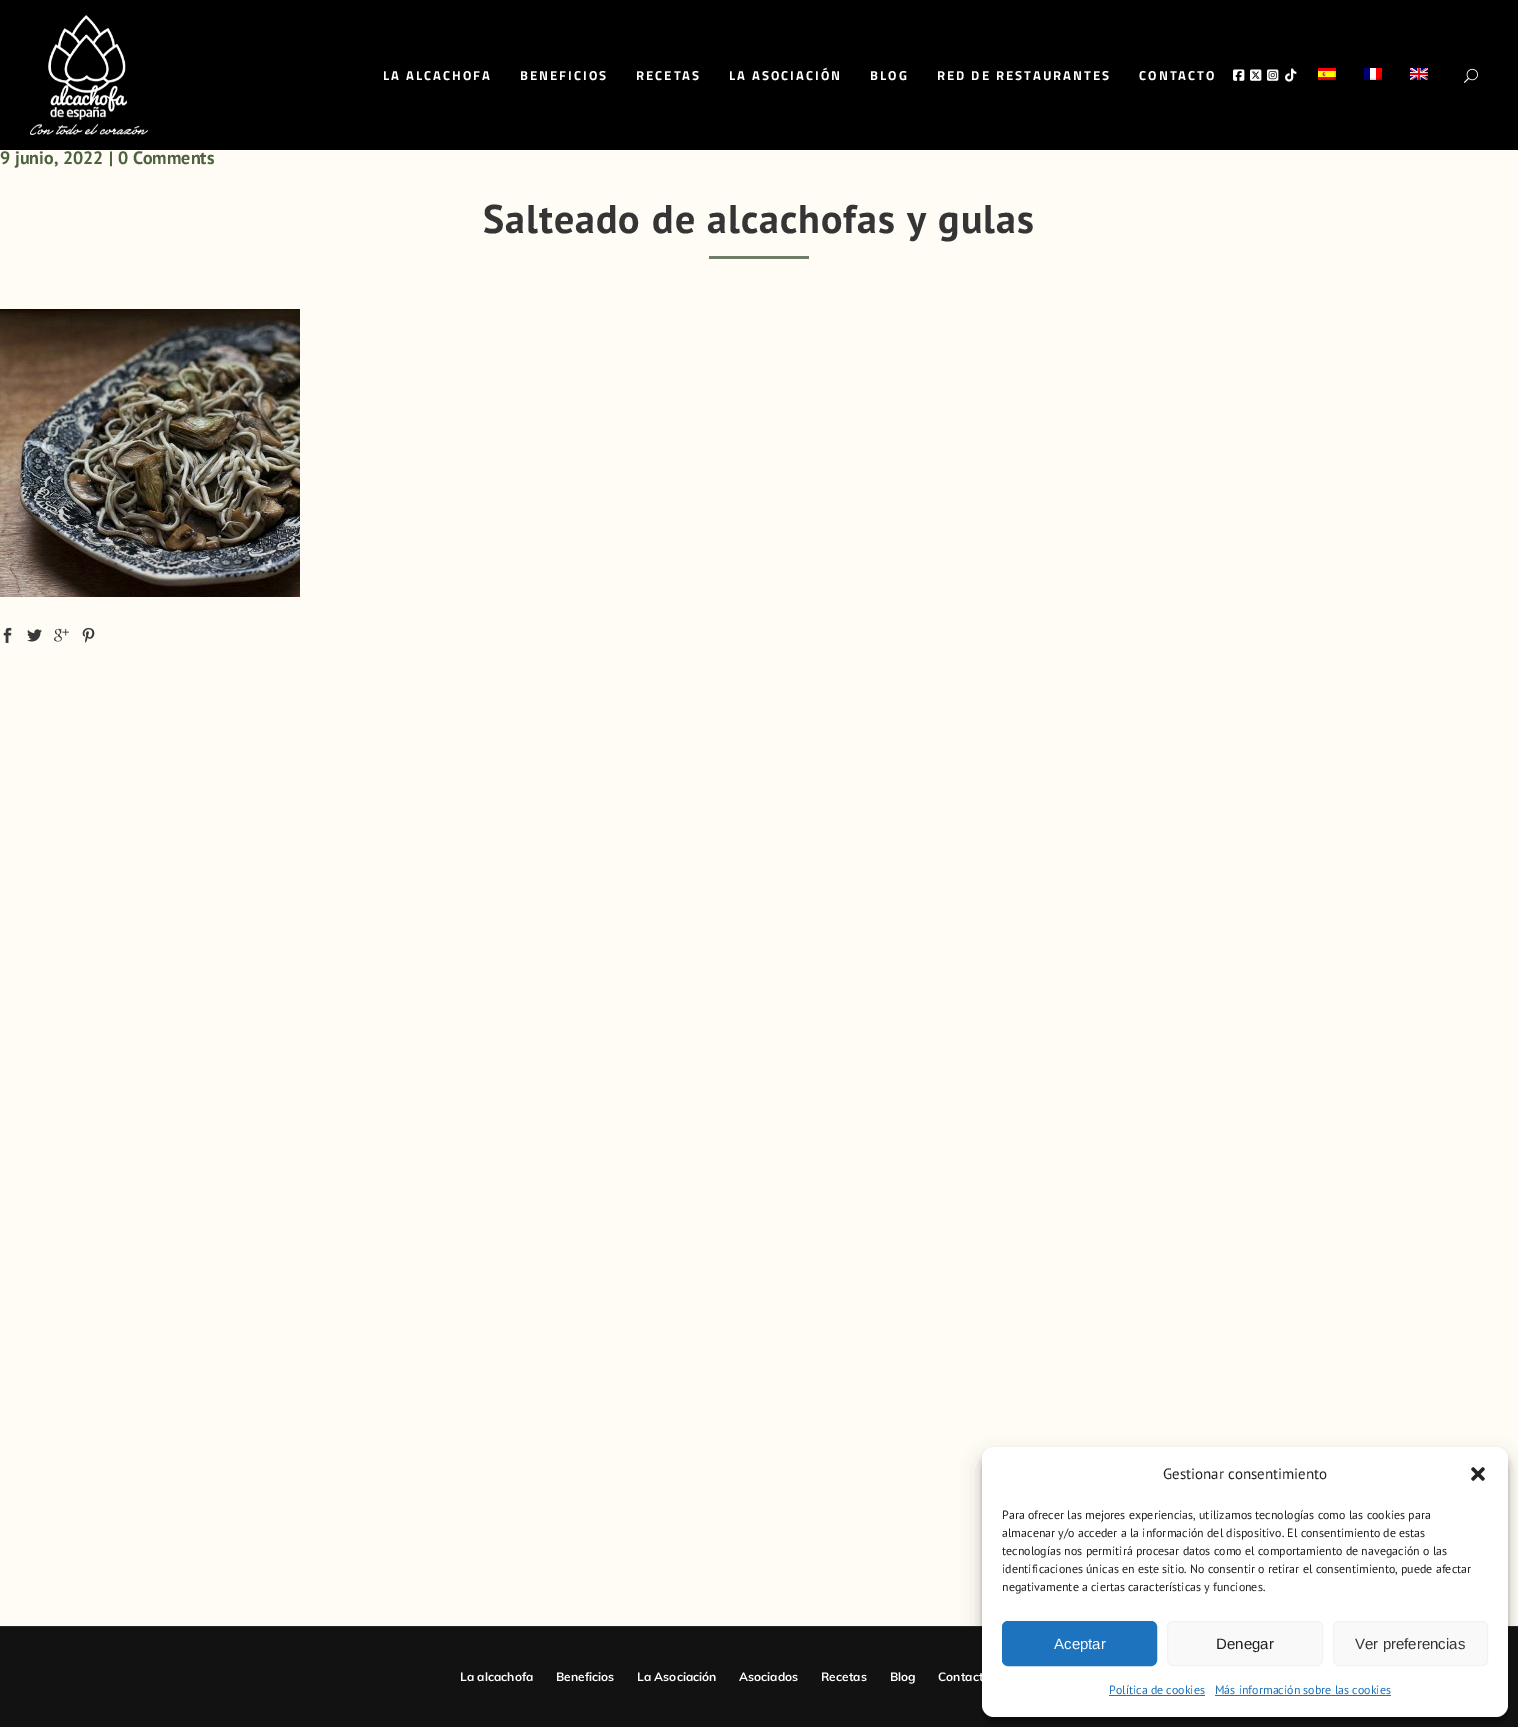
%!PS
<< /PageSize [1518 1727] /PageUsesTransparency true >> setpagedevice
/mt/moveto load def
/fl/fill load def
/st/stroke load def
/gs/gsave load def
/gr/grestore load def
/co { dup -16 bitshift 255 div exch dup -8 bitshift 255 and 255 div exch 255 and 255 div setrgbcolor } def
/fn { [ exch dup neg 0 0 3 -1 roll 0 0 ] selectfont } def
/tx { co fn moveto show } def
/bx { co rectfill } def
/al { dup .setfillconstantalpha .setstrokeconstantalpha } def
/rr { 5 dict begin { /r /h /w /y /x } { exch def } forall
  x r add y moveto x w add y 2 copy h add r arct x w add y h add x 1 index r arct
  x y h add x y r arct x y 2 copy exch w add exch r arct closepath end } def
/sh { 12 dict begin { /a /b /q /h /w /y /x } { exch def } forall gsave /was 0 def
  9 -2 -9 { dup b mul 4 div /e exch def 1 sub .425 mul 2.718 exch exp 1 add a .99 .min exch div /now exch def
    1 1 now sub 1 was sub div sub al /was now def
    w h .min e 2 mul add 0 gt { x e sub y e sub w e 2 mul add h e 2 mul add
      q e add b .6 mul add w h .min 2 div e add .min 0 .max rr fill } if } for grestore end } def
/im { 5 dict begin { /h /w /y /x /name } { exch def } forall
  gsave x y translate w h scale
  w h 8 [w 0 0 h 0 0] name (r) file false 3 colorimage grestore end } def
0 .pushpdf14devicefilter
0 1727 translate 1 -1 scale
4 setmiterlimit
0 0 1518 1727 16#FFFCF5 bx
0 0 1518 150 16#000000 bx
(media/1.raw) 30 15 118 120 im
(media/2.raw) 1233 69 12 12 im
(media/3.raw) 1250 69 12 12 im
(media/4.raw) 1267 69 12 12 im
(media/5.raw) 1285 68 12 14 im
(media/6.raw) 1318 68 18 12 im
(media/7.raw) 1364 68 18 12 im
(media/8.raw) 1410 68 18 12 im
(media/9.raw) 1464 68 14 15 im
709 256 100 3 16#6F7D66 bx
(media/10.raw) 0 309 300 288 im
(media/11.raw) 3 627 9 16 im
(media/12.raw) 27 629 15 13 im
(media/13.raw) 54 628 15 14 im
(media/14.raw) 82 627 13 16 im
0 1626 1518 1 16#272727 bx
0 1627 1518 100 16#121212 bx
16#000000 co
982 1453 526 270 12 3 .23 sh
982 1457 526 270 12 10 .19 sh
16#FFFFFF co
982 1447 526 270 12 rr fl
(media/15.raw) 1471 1467 14 14 im
16#1E73BE co
1002.5 1621.5 154 44 5.5 rr gs fl gr
st
16#F9F9F9 co
1167.5 1621.5 155 44 5.5 rr gs fl gr
16#F2F2F2 co
st
16#F9F9F9 co
1333.5 1621.5 154 44 5.5 rr gs fl gr
16#F2F2F2 co
st
1109 1695 96 1 16#1E73BE bx
1215 1695 176 1 16#1E73BE bx
/TitilliumWeb-Bold 13 fn
16#FFFFFF co
383 80 mt 2 0 (LA ALCACHOFA) ashow
520 80 mt 2 0 (BENEFICIOS) ashow
636 80 mt 2 0 (RECETAS) ashow
729 80 mt 2 0 (LA ASOCIACIÓN) ashow
870 80 mt 2 0 (BLOG) ashow
937 80 mt 2 0 (RED DE RESTAURANTES) ashow
1139 80 mt 2 0 (CONTACTO) ashow
(9 junio, 2022) 0 164 /PTSans-Bold 18 16#4D6340 tx
(|) 109 164 /PTSans-Bold 18 16#4D6340 tx
(0 Comments) 118 164 /PTSans-Bold 18 16#4D6340 tx
/PTSans-Bold 40 fn
16#353535 co
483 233 mt 1 0 (Salteado de alcachofas y gulas) ashow
(La alcachofa) 460 1681 /Muli-Bold 12 16#FFFFFF tx
(Beneficios) 556 1681 /Muli-Bold 12 16#FFFFFF tx
(La Asociación) 637 1681 /Muli-Bold 12 16#FFFFFF tx
(Asociados) 739 1681 /Muli-Bold 12 16#FFFFFF tx
(Recetas) 821 1681 /Muli-Bold 12 16#FFFFFF tx
(Blog) 890 1681 /Muli-Bold 12 16#FFFFFF tx
(Contact) 938 1681 /Muli-Bold 12 16#FFFFFF tx
(Gestionar consentimiento) 1163 1479 /PTSans-Regular 15 16#222222 tx
(Para ofrecer las mejores experiencias, utilizamos tecnologías como las cookies para) 1002 1519 /PTSans-Regular 12 16#222222 tx
(almacenar y/o acceder a la información del dispositivo. El consentimiento de estas) 1002 1537 /PTSans-Regular 12 16#222222 tx
(tecnologías nos permitirá procesar datos como el comportamiento de navegación o las) 1002 1555 /PTSans-Regular 12 16#222222 tx
(identificaciones únicas en este sitio. No consentir o retirar el consentimiento, puede afectar) 1002 1573 /PTSans-Regular 12 16#222222 tx
(negativamente a ciertas características y funciones.) 1002 1591 /PTSans-Regular 12 16#222222 tx
(Aceptar) 1054 1649 /LiberationSans-Regular 15 16#FFFFFF tx
(Denegar) 1216 1649 /LiberationSans-Regular 15 16#222222 tx
(Ver preferencias) 1355 1649 /LiberationSans-Regular 15 16#353535 tx
(Política de cookies) 1109 1694 /PTSans-Regular 12 16#1E73BE tx
(Más información sobre las cookies) 1215 1694 /PTSans-Regular 12 16#1E73BE tx
.poppdf14devicefilter showpage
